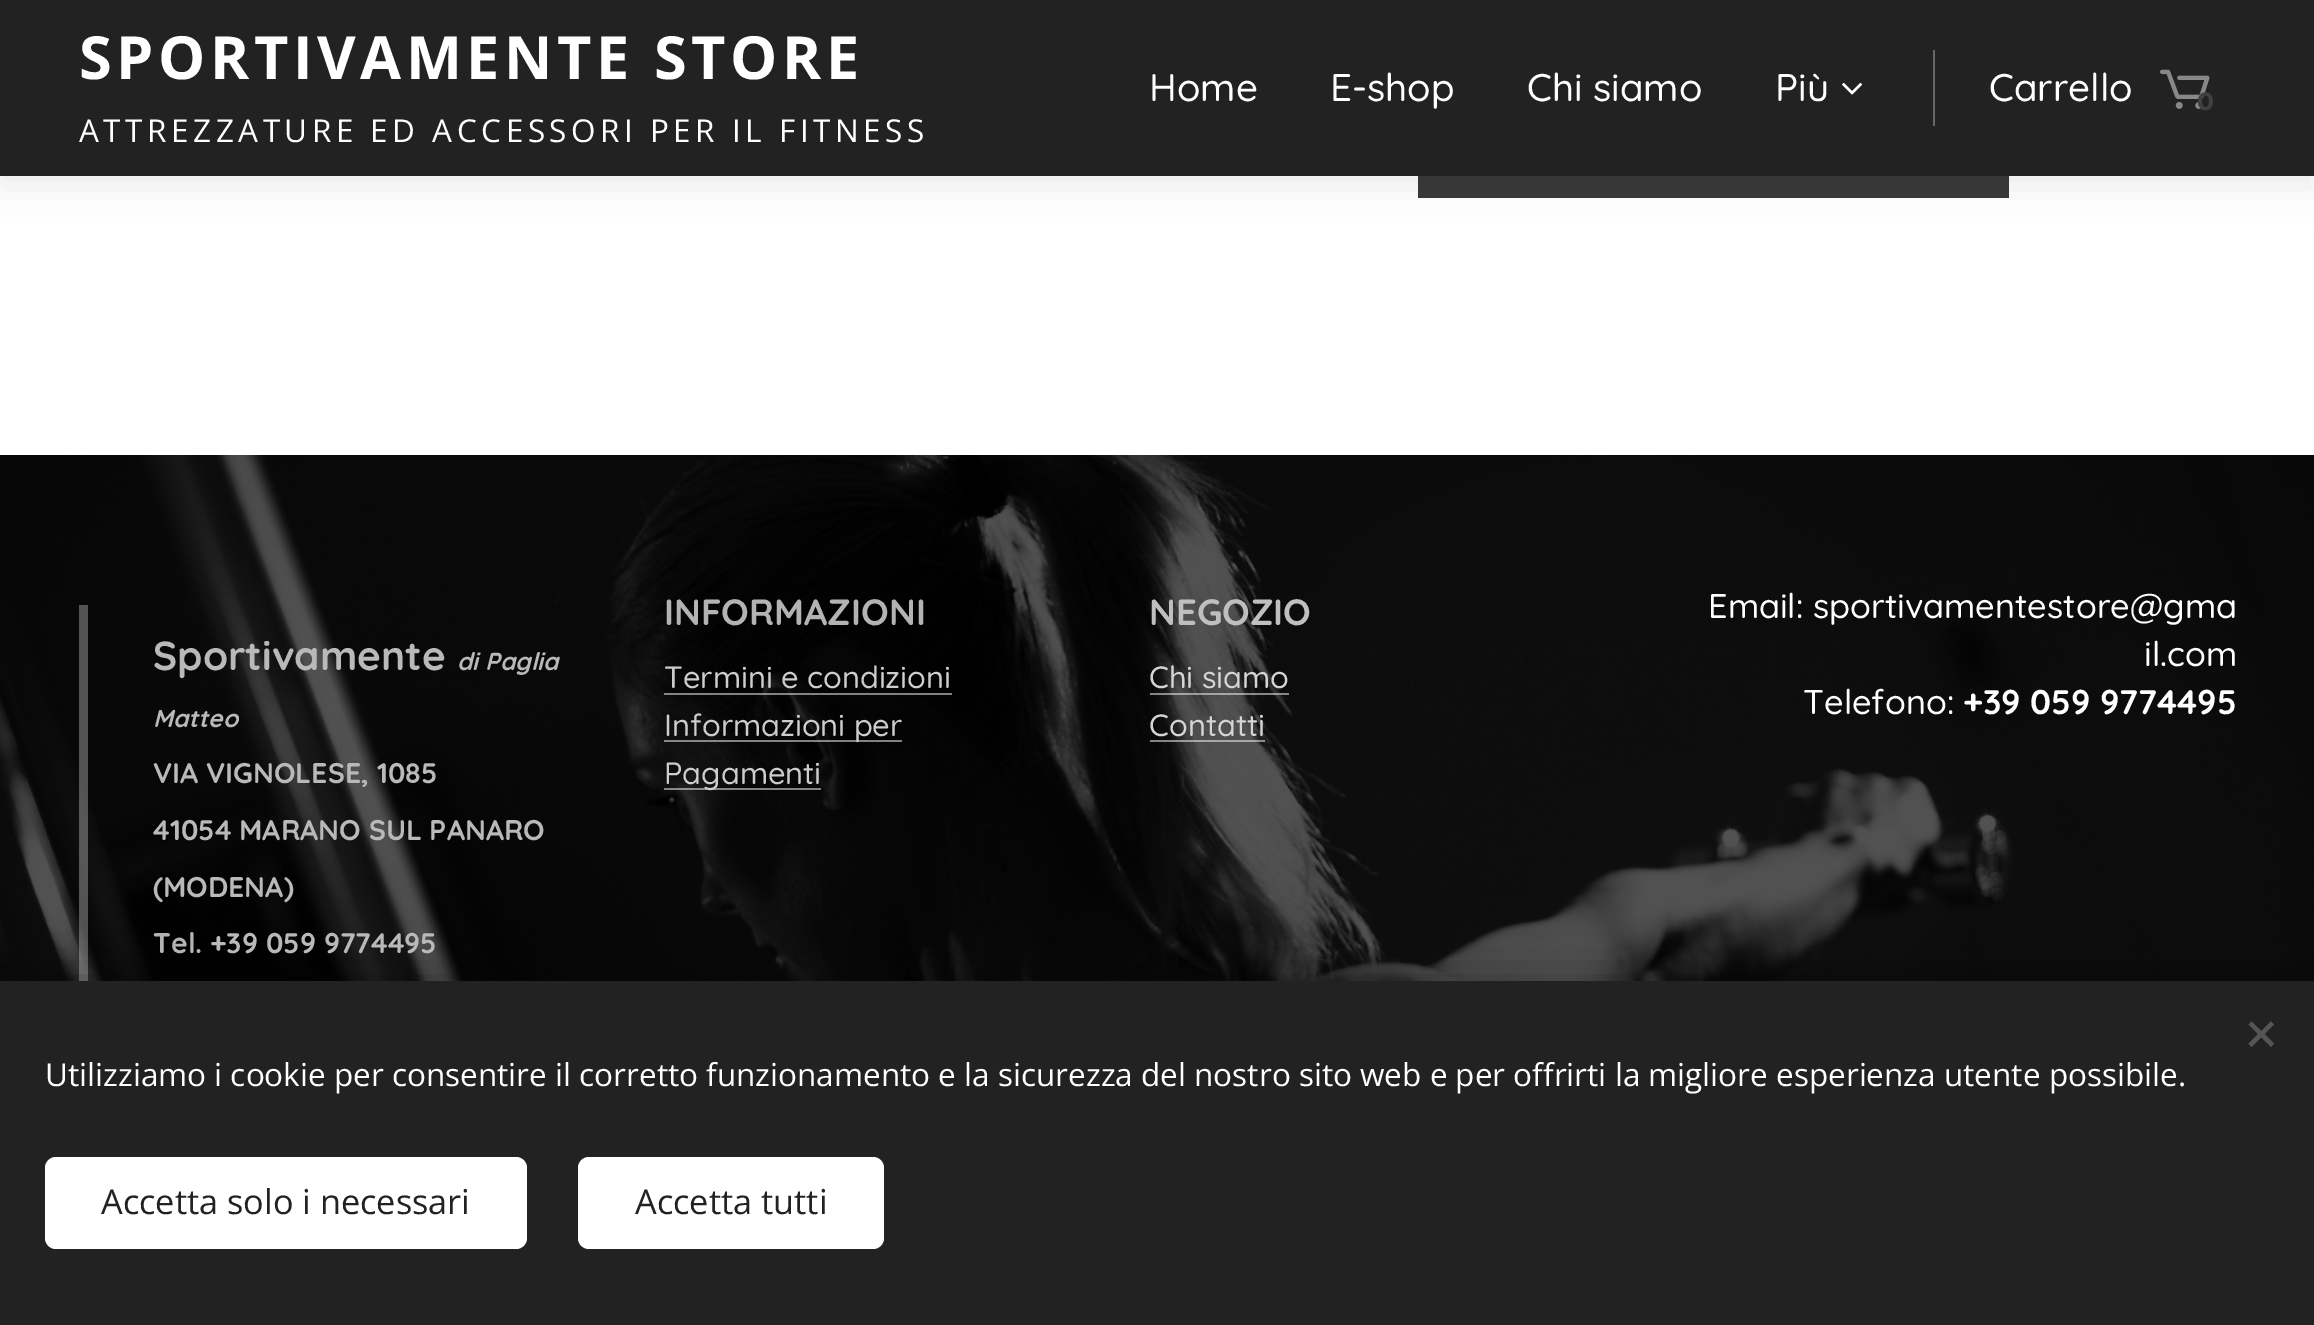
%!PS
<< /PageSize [2314 1325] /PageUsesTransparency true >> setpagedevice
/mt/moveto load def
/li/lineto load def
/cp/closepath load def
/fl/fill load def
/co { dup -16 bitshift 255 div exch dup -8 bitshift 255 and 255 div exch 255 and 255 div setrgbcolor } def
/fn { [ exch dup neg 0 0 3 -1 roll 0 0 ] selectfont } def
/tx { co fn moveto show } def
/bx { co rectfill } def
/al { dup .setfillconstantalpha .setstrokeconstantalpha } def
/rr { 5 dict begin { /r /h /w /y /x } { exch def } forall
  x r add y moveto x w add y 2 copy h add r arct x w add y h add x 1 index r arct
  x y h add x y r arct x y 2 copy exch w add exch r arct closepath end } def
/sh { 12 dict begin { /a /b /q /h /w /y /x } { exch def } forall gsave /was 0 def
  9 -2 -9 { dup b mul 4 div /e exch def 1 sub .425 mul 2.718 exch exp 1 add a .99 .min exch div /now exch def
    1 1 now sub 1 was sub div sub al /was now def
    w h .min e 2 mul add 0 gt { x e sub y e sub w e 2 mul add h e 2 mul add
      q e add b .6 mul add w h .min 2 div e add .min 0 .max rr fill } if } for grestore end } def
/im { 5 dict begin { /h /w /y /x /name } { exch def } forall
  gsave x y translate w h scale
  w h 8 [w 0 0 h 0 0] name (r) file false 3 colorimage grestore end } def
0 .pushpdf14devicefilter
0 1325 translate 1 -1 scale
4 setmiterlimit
0 0 2314 1325 16#FFFFFF bx
1418 176 591 22 16#393939 bx
16#000000 co
0 11 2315 176 0 17 .07 sh
0 0 2314 176 16#222222 bx
(media/1.raw) 1842 82 20 13 im
1933 50 2 76 16#666666 bx
(media/2.raw) 2160 69 50 40 im
(media/3.raw) 0 455 2314 526 im
0.3 al
79 605 9 376 16#FFFFFF bx
0.5 al
664 693 288 2 16#FFFFFF bx
664 740 238 2 16#FFFFFF bx
664 788 157 2 16#FFFFFF bx
1150 693 139 2 16#FFFFFF bx
1150 740 115 2 16#FFFFFF bx
1 al
16#000000 co
0 981 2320 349 0 28 .33 sh
0 981 2314 344 16#222222 bx
16#555555 co
2248.5 1043.5 mt 2271 1021.5 li 2274 1024.5 li 2251.5 1047 li cp fl
2251.5 1021.5 mt 2274 1043.5 li 2271 1047 li 2248.5 1024.5 li cp fl
16#FFFFFF co
45 1157 482 92 11 rr fl
578 1157 306 92 11 rr fl
/OpenSans-Bold 59.5 fn
79 79 mt 4.5 0 (SPORTIVAMENTE STORE) ashow
/OpenSans-Regular 31.5 fn
79 142 mt 4.5 0 (ATTREZZATURE ED ACCESSORI PER IL FITNESS) ashow
(Home) 1149 101 /Quicksand-Medium 38.5 16#FFFFFF tx
(E-shop) 1330 101 /Quicksand-Medium 38.5 16#FFFFFF tx
(Chi siamo) 1527 101 /Quicksand-Medium 38.5 16#FFFFFF tx
(Più) 1775 101 /Quicksand-Medium 38.5 16#FFFFFF tx
(Carrello) 1989 101 /Quicksand-Medium 38.5 16#FFFFFF tx
(0) 2197 110 /Montserrat-Bold 25 16#414141 tx
(Sportivamente) 153 670 /Quicksand-Bold 40.5 16#B9B9B9 tx
(di Paglia) 457 670 /Quicksand-BoldItalic 24.5 16#B9B9B9 tx
(Matteo) 153 727 /Quicksand-BoldItalic 24.5 16#B9B9B9 tx
(VIA VIGNOLESE, 1085) 153 783 /Quicksand-Bold 28.4 16#B9B9B9 tx
(41054 MARANO SUL PANARO) 153 840 /Quicksand-Bold 28.4 16#B9B9B9 tx
(\(MODENA\)) 153 897 /Quicksand-Bold 28.4 16#B9B9B9 tx
(Tel.) 153 953 /Quicksand-Bold 28.4 16#B3B3B3 tx
(+39 059 9774495) 210 953 /Quicksand-Bold 28.4 16#B9B9B9 tx
(INFORMAZIONI) 664 625 /Quicksand-Bold 36.5 16#B3B3B3 tx
(Termini e condizioni) 664 688 /Quicksand-Medium 30.75 16#CDCDCD tx
(Informazioni per) 664 736 /Quicksand-Medium 30.75 16#CDCDCD tx
(Pagamenti) 664 784 /Quicksand-Medium 30.75 16#CDCDCD tx
(NEGOZIO) 1149 625 /Quicksand-Bold 36.5 16#BFBFBF tx
(Chi siamo) 1149 688 /Quicksand-Medium 30.75 16#D5D5D5 tx
(Contatti) 1149 736 /Quicksand-Medium 30.75 16#D5D5D5 tx
(Email: sportivamentestore@gma) 1708 618 /Quicksand-Medium 34.25 16#FFFFFF tx
(il.com) 2144 666 /Quicksand-Medium 34.25 16#FFFFFF tx
(Telefono:) 1803 714 /Quicksand-Medium 34.25 16#FFFFFF tx
(+39 059 9774495) 1963 714 /Quicksand-Bold 34.25 16#FFFFFF tx
(Utilizziamo i cookie per consentire il corretto funzionamento e la sicurezza del nostro sito web e per offrirti la migliore esperienza utente possibile.) 45 1086 /OpenSans-Regular 31.5 16#FFFFFF tx
(Accetta solo i necessari) 101 1214 /OpenSans-Regular 34.25 16#222222 tx
(Accetta tutti) 635 1214 /OpenSans-Regular 34.25 16#222222 tx
.poppdf14devicefilter showpage
